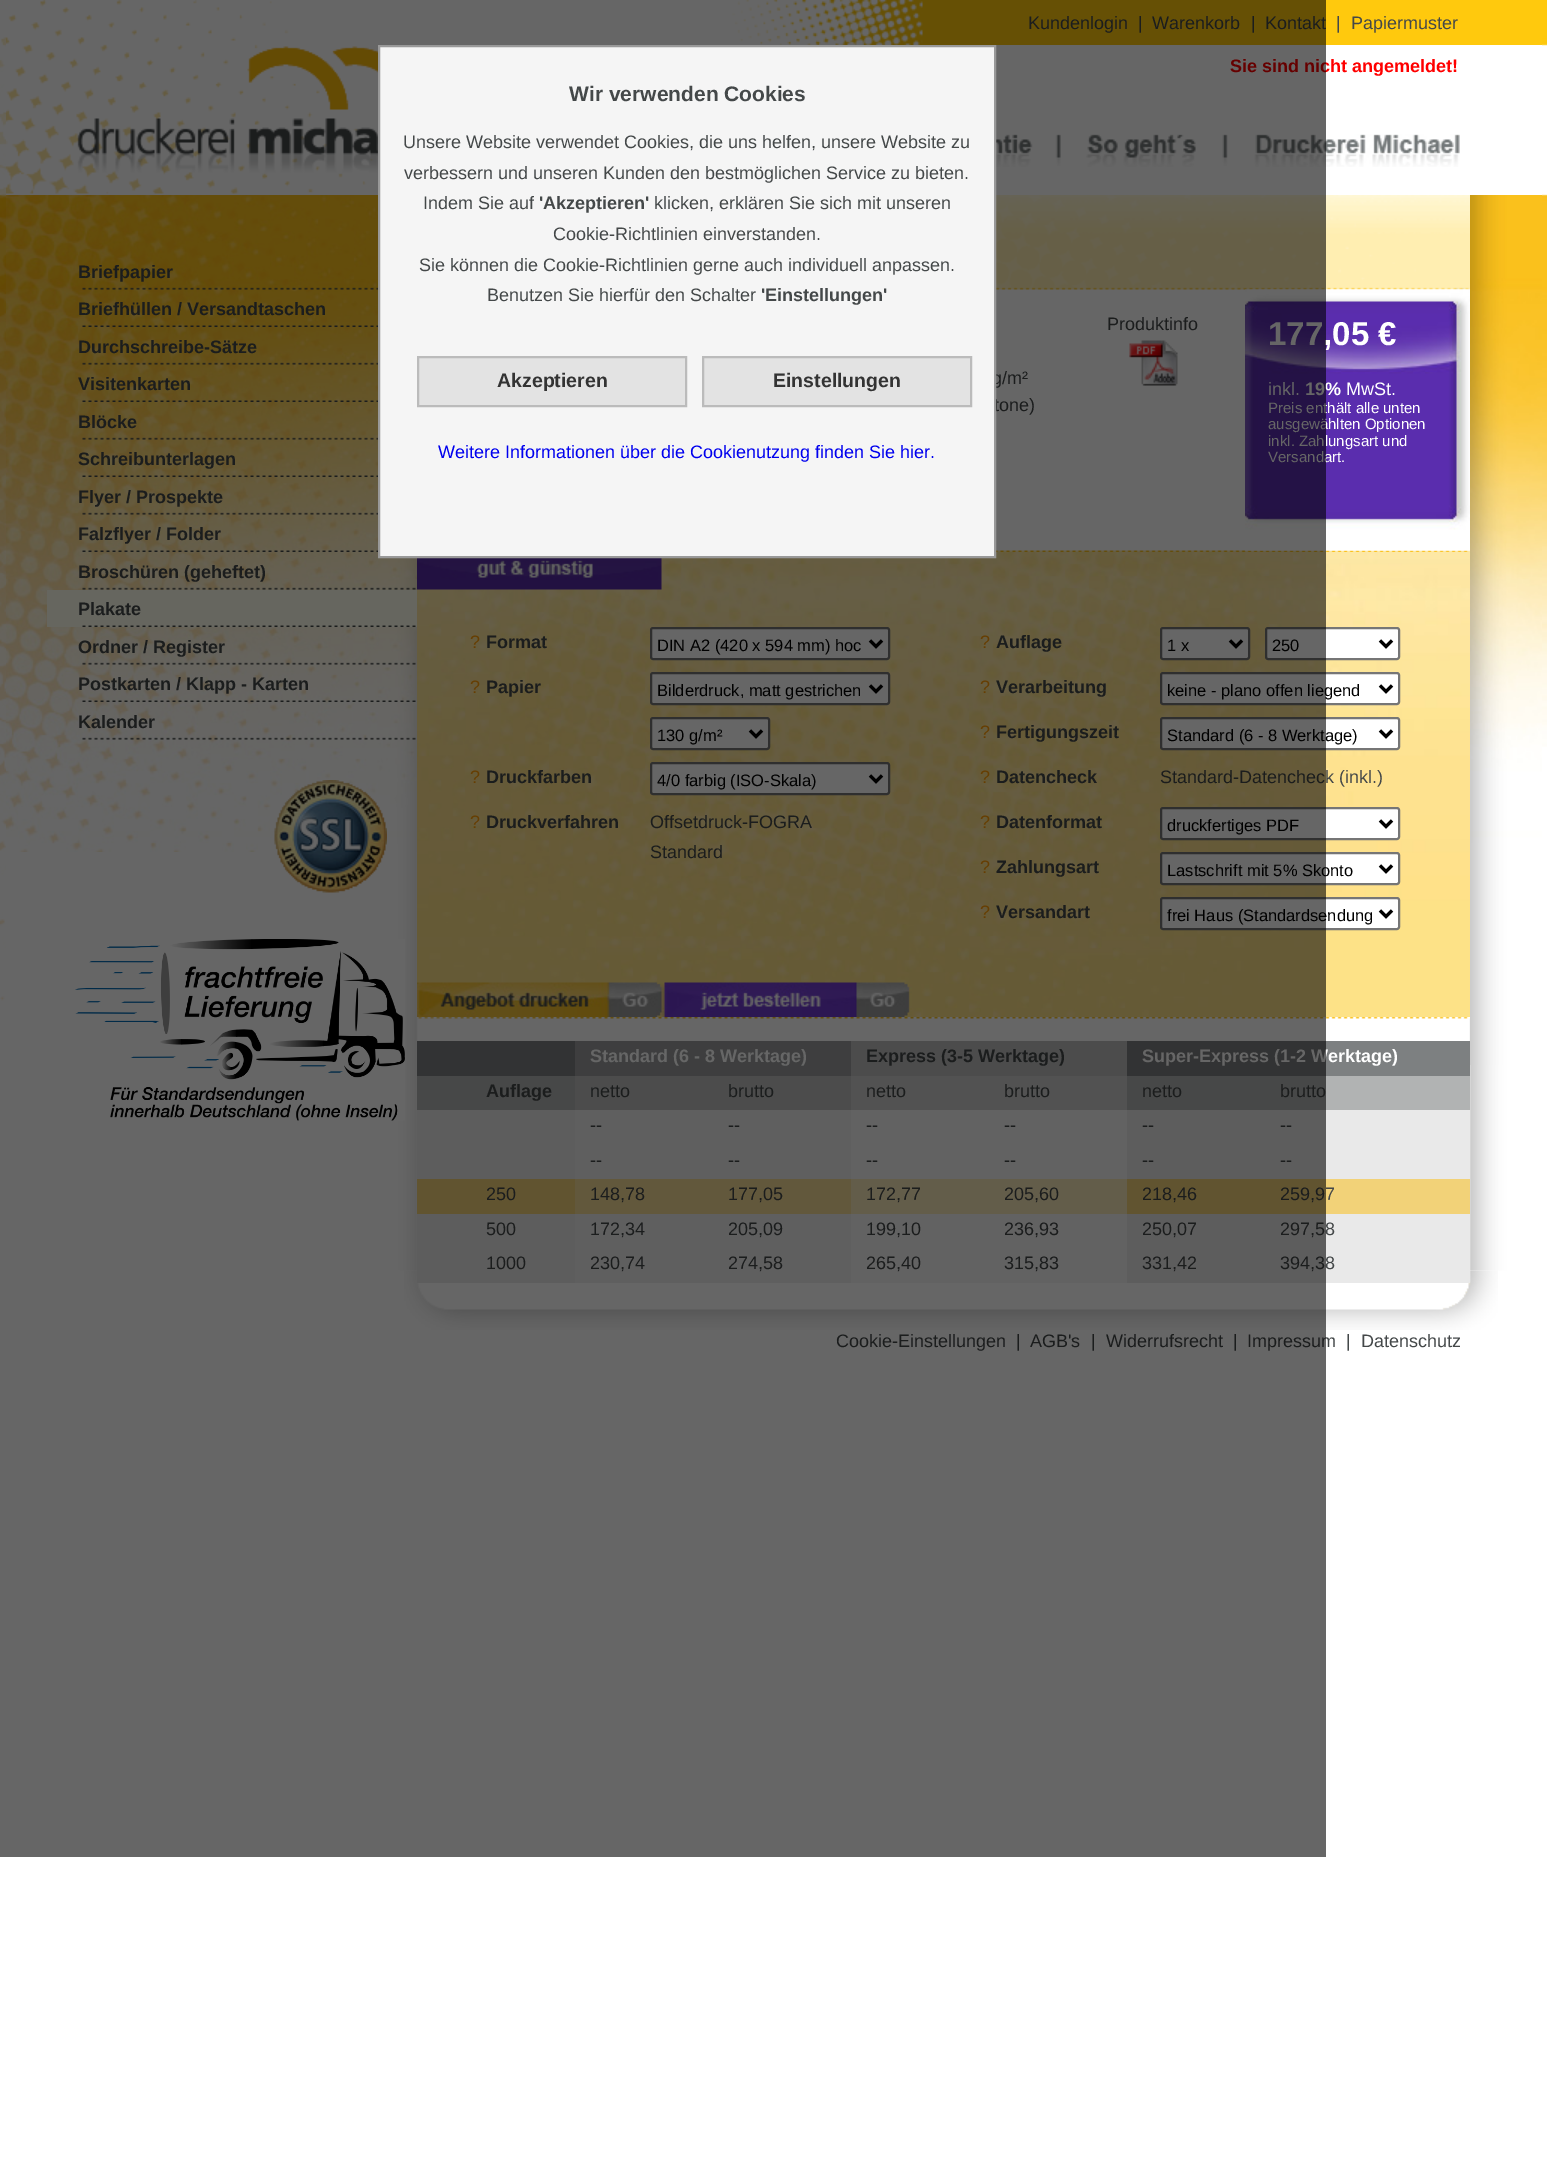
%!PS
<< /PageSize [1547 2165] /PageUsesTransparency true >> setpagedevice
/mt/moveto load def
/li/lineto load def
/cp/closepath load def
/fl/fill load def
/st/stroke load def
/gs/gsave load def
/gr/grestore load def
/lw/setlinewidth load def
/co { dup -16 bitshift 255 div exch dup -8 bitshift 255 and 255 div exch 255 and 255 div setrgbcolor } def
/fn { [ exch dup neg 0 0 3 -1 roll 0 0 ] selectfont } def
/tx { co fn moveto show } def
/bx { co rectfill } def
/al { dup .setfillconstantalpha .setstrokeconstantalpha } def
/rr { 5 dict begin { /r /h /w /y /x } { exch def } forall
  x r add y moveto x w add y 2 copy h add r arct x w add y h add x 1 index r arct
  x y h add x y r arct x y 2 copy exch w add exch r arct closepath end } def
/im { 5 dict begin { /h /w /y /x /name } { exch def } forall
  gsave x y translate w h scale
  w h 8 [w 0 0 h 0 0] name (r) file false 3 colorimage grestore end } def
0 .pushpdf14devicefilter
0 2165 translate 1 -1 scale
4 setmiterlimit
0 0 1547 2165 16#FFFFFF bx
(media/1.raw) 1542 0 5 747 im
(media/2.raw) 0 0 6 1001 im
(media/3.raw) 6 0 411 194 im
(media/4.raw) 732 0 810 45 im
(media/5.raw) 996 134 37 33 im
(media/6.raw) 1055 134 6 32 im
(media/7.raw) 1086 134 110 33 im
(media/8.raw) 1222 134 6 32 im
(media/9.raw) 1254 134 206 33 im
(media/10.raw) 6 289 1536 982 im
(media/11.raw) 6 195 411 657 im
(media/12.raw) 82 287 296 3 im
(media/13.raw) 82 325 296 2 im
(media/14.raw) 82 362 296 3 im
(media/15.raw) 82 400 296 2 im
(media/16.raw) 82 437 296 3 im
(media/17.raw) 82 475 296 2 im
(media/18.raw) 82 512 296 3 im
(media/19.raw) 82 550 296 2 im
(media/20.raw) 82 587 334 3 im
47 590 370 37 16#FFFFEE bx
(media/21.raw) 82 625 334 2 im
(media/22.raw) 82 662 334 3 im
(media/23.raw) 82 700 334 2 im
(media/24.raw) 82 737 334 3 im
(media/25.raw) 274 780 113 113 im
(media/26.raw) 75 939 330 182 im
(media/27.raw) 996 195 474 95 im
(media/28.raw) 1129 340 49 46 im
(media/31.raw) 996 550 474 2 im
(media/29.raw) 1245 289 225 262 im
(media/32.raw) 417 552 1053 465 im
(media/30.raw) 417 558 245 32 im
16#FFFFFF co
651 628 238 31 2 rr gs fl gr
16#767676 co
2 lw
st
16#000000 co
3 lw
870 640.5 mt 876 646.5 li 882 640.5 li st
16#FFFFFF co
651 673 238 31 2 rr gs fl gr
16#767676 co
2 lw
st
16#000000 co
3 lw
870 685.5 mt 876 691.5 li 882 685.5 li st
16#FFFFFF co
651 718 118 31 2 rr gs fl gr
16#767676 co
2 lw
st
16#000000 co
3 lw
750 730.5 mt 756 736.5 li 762 730.5 li st
16#FFFFFF co
651 763 238 31 2 rr gs fl gr
16#767676 co
2 lw
st
16#000000 co
3 lw
870 775.5 mt 876 781.5 li 882 775.5 li st
16#FFFFFF co
1161 628 88 31 2 rr gs fl gr
16#767676 co
2 lw
st
16#000000 co
3 lw
1230 640.5 mt 1236 646.5 li 1242 640.5 li st
16#FFFFFF co
1266 628 133 31 2 rr gs fl gr
16#767676 co
2 lw
st
16#000000 co
3 lw
1380 640.5 mt 1386 646.5 li 1392 640.5 li st
16#FFFFFF co
1161 673 238 31 2 rr gs fl gr
16#767676 co
2 lw
st
16#000000 co
3 lw
1380 685.5 mt 1386 691.5 li 1392 685.5 li st
16#FFFFFF co
1161 718 238 31 2 rr gs fl gr
16#767676 co
2 lw
st
16#000000 co
3 lw
1380 730.5 mt 1386 736.5 li 1392 730.5 li st
16#FFFFFF co
1161 808 238 31 2 rr gs fl gr
16#767676 co
2 lw
st
16#000000 co
3 lw
1380 820.5 mt 1386 826.5 li 1392 820.5 li st
16#FFFFFF co
1161 853 238 31 2 rr gs fl gr
16#767676 co
2 lw
st
16#000000 co
3 lw
1380 865.5 mt 1386 871.5 li 1392 865.5 li st
16#FFFFFF co
1161 898 238 31 2 rr gs fl gr
16#767676 co
2 lw
st
16#000000 co
3 lw
1380 910.5 mt 1386 916.5 li 1392 910.5 li st
(media/33.raw) 417 982 248 35 im
(media/34.raw) 664 982 248 35 im
(media/35.raw) 418 1017 1052 2 im
417 1041 1053 35 16#7D8081 bx
575 1041 276 35 16#9A9C9D bx
851 1041 276 35 16#BDBEBF bx
417 1076 1053 34 16#B1B3B3 bx
575 1076 276 34 16#BDBFBF bx
851 1076 276 34 16#CCCDCD bx
417 1110 1053 69 16#E9E9E9 bx
575 1110 276 35 16#EEEEEE bx
851 1110 276 35 16#F4F4F4 bx
575 1145 276 34 16#EEEEEE bx
851 1145 276 34 16#F4F4F4 bx
417 1179 1053 35 16#F2D278 bx
575 1179 276 35 16#F5DC95 bx
851 1179 276 35 16#F8E8BA bx
(media/37.raw) 404 1270 1094 60 im
417 1214 1053 69 16#E9E9E9 bx
575 1214 276 34 16#EEEEEE bx
851 1214 276 34 16#F4F4F4 bx
575 1248 276 35 16#EEEEEE bx
851 1248 276 35 16#F4F4F4 bx
(media/36.raw) 1470 195 72 870 im
(Kundenlogin) 1028 29 /LiberationSans-Regular 18 16#444849 tx
(|) 1138 29 /LiberationSans-Regular 18 16#444849 tx
(Warenkorb) 1152 29 /LiberationSans-Regular 18 16#444849 tx
(|) 1251 29 /LiberationSans-Regular 18 16#444849 tx
(Kontakt) 1265 29 /LiberationSans-Regular 18 16#444849 tx
(|) 1336 29 /LiberationSans-Regular 18 16#444849 tx
(Papiermuster) 1351 29 /LiberationSans-Regular 18 16#444849 tx
(Sie sind nicht angemeldet!) 1230 72 /LiberationSans-Bold 18 16#FF0000 tx
(Briefpapier) 78 278 /LiberationSans-Bold 18 16#444849 tx
(Briefhüllen / Versandtaschen) 78 315 /LiberationSans-Bold 18 16#444849 tx
(Durchschreibe-Sätze) 78 353 /LiberationSans-Bold 18 16#444849 tx
(Visitenkarten) 78 390 /LiberationSans-Bold 18 16#444849 tx
(Blöcke) 78 428 /LiberationSans-Bold 18 16#444849 tx
(Schreibunterlagen) 78 465 /LiberationSans-Bold 18 16#444849 tx
(Flyer / Prospekte) 78 503 /LiberationSans-Bold 18 16#444849 tx
(Falzflyer / Folder) 78 540 /LiberationSans-Bold 18 16#444849 tx
(Broschüren \(geheftet\)) 78 578 /LiberationSans-Bold 18 16#444849 tx
(Plakate) 78 615 /LiberationSans-Bold 18 16#444849 tx
(Ordner / Register) 78 653 /LiberationSans-Bold 18 16#444849 tx
(Postkarten / Klapp - Karten) 78 690 /LiberationSans-Bold 18 16#444849 tx
(Kalender) 78 728 /LiberationSans-Bold 18 16#444849 tx
(Produktinfo) 1107 330 /LiberationSans-Regular 18 16#444849 tx
(g/m²) 992 384 /LiberationSans-Regular 18 16#444849 tx
(tone\)) 994 411 /LiberationSans-Regular 18 16#444849 tx
(177,05 €) 1268 345 /LiberationSans-Bold 33 16#FFFFFF tx
(inkl.) 1268 395 /LiberationSans-Regular 18 16#FFFFFF tx
(19%) 1305 395 /LiberationSans-Bold 18 16#FFFFFF tx
(MwSt.) 1346 395 /LiberationSans-Regular 18 16#FFFFFF tx
(Preis enthält alle unten) 1268 413 /LiberationSans-Regular 15 16#FFFFFF tx
(ausgewählten Optionen) 1268 429 /LiberationSans-Regular 15 16#FFFFFF tx
(inkl. Zahlungsart und) 1268 446 /LiberationSans-Regular 15 16#FFFFFF tx
(Versandart.) 1268 462 /LiberationSans-Regular 15 16#FFFFFF tx
(?) 470 648 /LiberationSans-Regular 18 16#FF9B04 tx
(Format) 486 648 /LiberationSans-Bold 18 16#444849 tx
(DIN A2 \(420 x 594 mm\) hoc) 657 651 /LiberationSans-Regular 16.5 16#000000 tx
(?) 470 693 /LiberationSans-Regular 18 16#FF9B04 tx
(Papier) 486 693 /LiberationSans-Bold 18 16#444849 tx
(Bilderdruck, matt gestrichen) 657 696 /LiberationSans-Regular 16.5 16#000000 tx
(130 g/m²) 657 741 /LiberationSans-Regular 16.5 16#000000 tx
(?) 470 783 /LiberationSans-Regular 18 16#FF9B04 tx
(Druckfarben) 486 783 /LiberationSans-Bold 18 16#444849 tx
(4/0 farbig \(ISO-Skala\)) 657 786 /LiberationSans-Regular 16.5 16#000000 tx
(?) 470 828 /LiberationSans-Regular 18 16#FF9B04 tx
(Druckverfahren) 486 828 /LiberationSans-Bold 18 16#444849 tx
(Offsetdruck-FOGRA) 650 828 /LiberationSans-Regular 18 16#444849 tx
(Standard) 650 858 /LiberationSans-Regular 18 16#444849 tx
(?) 980 648 /LiberationSans-Regular 18 16#FF9B04 tx
(Auflage) 996 648 /LiberationSans-Bold 18 16#444849 tx
(1 x) 1167 651 /LiberationSans-Regular 16.5 16#000000 tx
(250) 1272 651 /LiberationSans-Regular 16.5 16#000000 tx
(?) 980 693 /LiberationSans-Regular 18 16#FF9B04 tx
(Verarbeitung) 996 693 /LiberationSans-Bold 18 16#444849 tx
(keine - plano offen liegend) 1167 696 /LiberationSans-Regular 16.5 16#000000 tx
(?) 980 738 /LiberationSans-Regular 18 16#FF9B04 tx
(Fertigungszeit) 996 738 /LiberationSans-Bold 18 16#444849 tx
(Standard \(6 - 8 Werktage\)) 1167 741 /LiberationSans-Regular 16.5 16#000000 tx
(?) 980 783 /LiberationSans-Regular 18 16#FF9B04 tx
(Datencheck) 996 783 /LiberationSans-Bold 18 16#444849 tx
(Standard-Datencheck \(inkl.\)) 1160 783 /LiberationSans-Regular 18 16#444849 tx
(?) 980 828 /LiberationSans-Regular 18 16#FF9B04 tx
(Datenformat) 996 828 /LiberationSans-Bold 18 16#444849 tx
(druckfertiges PDF) 1167 831 /LiberationSans-Regular 16.5 16#000000 tx
(?) 980 873 /LiberationSans-Regular 18 16#FF9B04 tx
(Zahlungsart) 996 873 /LiberationSans-Bold 18 16#444849 tx
(Lastschrift mit 5% Skonto) 1167 876 /LiberationSans-Regular 16.5 16#000000 tx
(?) 980 918 /LiberationSans-Regular 18 16#FF9B04 tx
(Versandart) 996 918 /LiberationSans-Bold 18 16#444849 tx
(frei Haus \(Standardsendung) 1167 921 /LiberationSans-Regular 16.5 16#000000 tx
(Standard \(6 - 8 Werktage\)) 590 1062 /LiberationSans-Bold 18 16#FFFFFF tx
(Express \(3-5 Werktage\)) 866 1062 /LiberationSans-Bold 18 16#444849 tx
(Super-Express \(1-2 Werktage\)) 1142 1062 /LiberationSans-Bold 18 16#FFFFFF tx
(Auflage) 486 1097 /LiberationSans-Bold 18 16#444849 tx
(netto) 590 1097 /LiberationSans-Regular 18 16#444849 tx
(brutto) 728 1097 /LiberationSans-Regular 18 16#444849 tx
(netto) 866 1097 /LiberationSans-Regular 18 16#444849 tx
(brutto) 1004 1097 /LiberationSans-Regular 18 16#444849 tx
(netto) 1142 1097 /LiberationSans-Regular 18 16#444849 tx
(brutto) 1280 1097 /LiberationSans-Regular 18 16#444849 tx
(--) 590 1131 /LiberationSans-Regular 18 16#444849 tx
(--) 728 1131 /LiberationSans-Regular 18 16#444849 tx
(--) 866 1131 /LiberationSans-Regular 18 16#444849 tx
(--) 1004 1131 /LiberationSans-Regular 18 16#444849 tx
(--) 1142 1131 /LiberationSans-Regular 18 16#444849 tx
(--) 1280 1131 /LiberationSans-Regular 18 16#444849 tx
(--) 590 1166 /LiberationSans-Regular 18 16#444849 tx
(--) 728 1166 /LiberationSans-Regular 18 16#444849 tx
(--) 866 1166 /LiberationSans-Regular 18 16#444849 tx
(--) 1004 1166 /LiberationSans-Regular 18 16#444849 tx
(--) 1142 1166 /LiberationSans-Regular 18 16#444849 tx
(--) 1280 1166 /LiberationSans-Regular 18 16#444849 tx
(250) 486 1200 /LiberationSans-Regular 18 16#444849 tx
(148,78) 590 1200 /LiberationSans-Regular 18 16#444849 tx
(177,05) 728 1200 /LiberationSans-Regular 18 16#444849 tx
(172,77) 866 1200 /LiberationSans-Regular 18 16#444849 tx
(205,60) 1004 1200 /LiberationSans-Regular 18 16#444849 tx
(218,46) 1142 1200 /LiberationSans-Regular 18 16#444849 tx
(259,97) 1280 1200 /LiberationSans-Regular 18 16#444849 tx
(500) 486 1235 /LiberationSans-Regular 18 16#444849 tx
(172,34) 590 1235 /LiberationSans-Regular 18 16#444849 tx
(205,09) 728 1235 /LiberationSans-Regular 18 16#444849 tx
(199,10) 866 1235 /LiberationSans-Regular 18 16#444849 tx
(236,93) 1004 1235 /LiberationSans-Regular 18 16#444849 tx
(250,07) 1142 1235 /LiberationSans-Regular 18 16#444849 tx
(297,58) 1280 1235 /LiberationSans-Regular 18 16#444849 tx
(1000) 486 1269 /LiberationSans-Regular 18 16#444849 tx
(230,74) 590 1269 /LiberationSans-Regular 18 16#444849 tx
(274,58) 728 1269 /LiberationSans-Regular 18 16#444849 tx
(265,40) 866 1269 /LiberationSans-Regular 18 16#444849 tx
(315,83) 1004 1269 /LiberationSans-Regular 18 16#444849 tx
(331,42) 1142 1269 /LiberationSans-Regular 18 16#444849 tx
(394,38) 1280 1269 /LiberationSans-Regular 18 16#444849 tx
(Cookie-Einstellungen) 836 1347 /LiberationSans-Regular 18 16#444849 tx
(|) 1016 1347 /LiberationSans-Regular 18 16#444849 tx
(AGB's) 1030 1347 /LiberationSans-Regular 18 16#444849 tx
(|) 1091 1347 /LiberationSans-Regular 18 16#444849 tx
(Widerrufsrecht) 1106 1347 /LiberationSans-Regular 18 16#444849 tx
(|) 1233 1347 /LiberationSans-Regular 18 16#444849 tx
(Impressum) 1247 1347 /LiberationSans-Regular 18 16#444849 tx
0.6 al
0 0 1326 1857 16#000000 bx
1 al
(|) 1346 1347 /LiberationSans-Regular 18 16#444849 tx
(Datenschutz) 1361 1347 /LiberationSans-Regular 18 16#444849 tx
16#F5F5F5 co
379 46 mt 995 46 li 995 557 li 379 557 li cp gs fl gr
16#999999 co
2 lw
st
(Wir verwenden Cookies) 569 101 /LiberationSans-Bold 21 16#444849 tx
(Unsere Website verwendet Cookies, die uns helfen, unsere Website zu) 403 148 /LiberationSans-Regular 18 16#444849 tx
(verbessern und unseren Kunden den bestmöglichen Service zu bieten.) 404 179 /LiberationSans-Regular 18 16#444849 tx
(Indem Sie auf) 423 209 /LiberationSans-Regular 18 16#444849 tx
('Akzeptieren') 539 209 /LiberationSans-Bold 18 16#444849 tx
(klicken, erklären Sie sich mit unseren) 654 209 /LiberationSans-Regular 18 16#444849 tx
(Cookie-Richtlinien einverstanden.) 553 240 /LiberationSans-Regular 18 16#444849 tx
(Sie können die Cookie-Richtlinien gerne auch individuell anpassen.) 419 271 /LiberationSans-Regular 18 16#444849 tx
(Benutzen Sie hierfür den Schalter) 487 301 /LiberationSans-Regular 18 16#444849 tx
('Einstellungen') 761 301 /LiberationSans-Bold 18 16#444849 tx
16#E3E3E3 co
418 357 mt 686 357 li 686 406 li 418 406 li cp gs fl gr
16#BBBBBB co
st
(Akzeptieren) 497 387 /LiberationSans-Bold 19.5 16#333333 tx
16#E3E3E3 co
703 357 mt 971 357 li 971 406 li 703 406 li cp gs fl gr
16#BBBBBB co
st
(Einstellungen) 773 387 /LiberationSans-Bold 19.5 16#333333 tx
(Weitere Informationen über die Cookienutzung finden Sie hier.) 438 458 /LiberationSans-Regular 18 16#0000EE tx
.poppdf14devicefilter showpage
